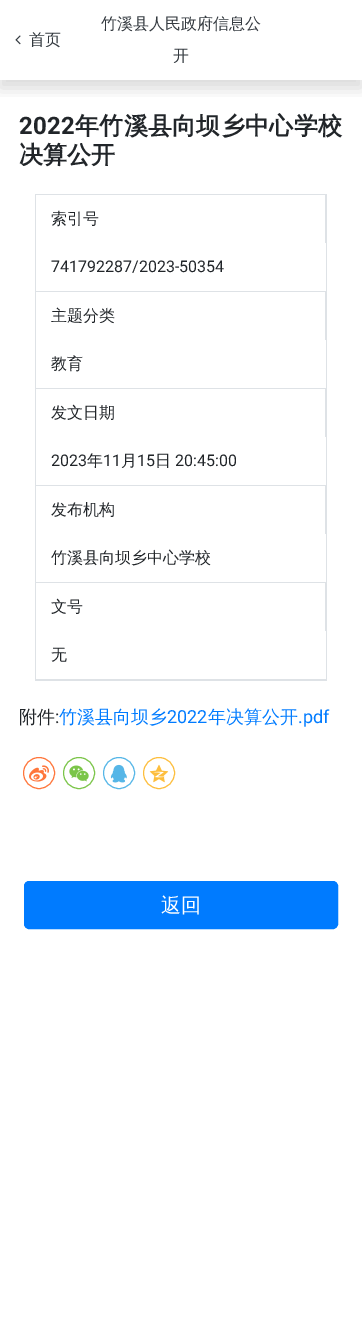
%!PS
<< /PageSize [362 1341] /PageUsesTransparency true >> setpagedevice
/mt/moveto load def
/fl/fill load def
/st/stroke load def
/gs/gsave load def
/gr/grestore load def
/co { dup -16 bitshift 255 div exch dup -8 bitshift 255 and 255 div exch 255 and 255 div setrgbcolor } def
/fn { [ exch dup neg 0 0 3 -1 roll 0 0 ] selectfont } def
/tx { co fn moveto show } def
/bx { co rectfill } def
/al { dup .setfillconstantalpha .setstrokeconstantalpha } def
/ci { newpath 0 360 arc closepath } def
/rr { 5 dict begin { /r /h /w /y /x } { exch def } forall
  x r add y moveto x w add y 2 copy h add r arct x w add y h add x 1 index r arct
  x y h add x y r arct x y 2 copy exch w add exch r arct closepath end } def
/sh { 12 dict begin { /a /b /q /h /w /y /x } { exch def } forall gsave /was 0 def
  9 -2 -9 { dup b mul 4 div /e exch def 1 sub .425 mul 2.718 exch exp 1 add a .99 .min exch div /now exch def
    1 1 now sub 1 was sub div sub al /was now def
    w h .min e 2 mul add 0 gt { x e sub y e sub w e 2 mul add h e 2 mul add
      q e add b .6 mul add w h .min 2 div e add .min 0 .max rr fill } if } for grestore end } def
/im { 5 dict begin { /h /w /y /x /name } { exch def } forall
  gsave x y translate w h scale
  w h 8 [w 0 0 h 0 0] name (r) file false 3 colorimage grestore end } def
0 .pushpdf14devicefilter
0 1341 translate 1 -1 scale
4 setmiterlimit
0 0 362 1341 16#FFFFFF bx
gs
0 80 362 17 rectclip
16#000000 co
0 8 362 80 0 8 .15 sh
gr
(media/1.raw) 15 35 6 10 im
326 194 1 487 16#DEE2E6 bx
35 680 292 1 16#DEE2E6 bx
35 194 291 1 16#DEE2E6 bx
35 194 1 97 16#DEE2E6 bx
325 195 1 48 16#DEE2E6 bx
35 291 291 1 16#DEE2E6 bx
35 291 1 97 16#DEE2E6 bx
325 292 1 48 16#DEE2E6 bx
35 388 291 1 16#DEE2E6 bx
35 388 1 97 16#DEE2E6 bx
325 389 1 48 16#DEE2E6 bx
35 485 291 1 16#DEE2E6 bx
35 485 1 97 16#DEE2E6 bx
325 486 1 48 16#DEE2E6 bx
35 582 291 1 16#DEE2E6 bx
35 582 1 97 16#DEE2E6 bx
325 583 1 48 16#DEE2E6 bx
35 679 291 1 16#DEE2E6 bx
16#FF763B co
39 773 15.5 ci st
(media/2.raw) 29 765 20 17 im
16#7BC549 co
79 773 15.5 ci st
(media/3.raw) 69 765 20 17 im
16#56B6E7 co
119 773 15.5 ci st
(media/4.raw) 110 764 17 19 im
16#FDBE3D co
159 773 15.5 ci st
(media/5.raw) 149 764 20 19 im
16#007BFF co
24.5 881.5 313 47 4.5 rr gs fl gr
st
(首页) 29 45 /WenQuanYiZenHei-Medium 16 16#343A40 tx
(竹溪县人民政府信息公) 101 29 /WenQuanYiZenHei-Medium 16 16#343A40 tx
(开) 173 61 /WenQuanYiZenHei-Medium 16 16#343A40 tx
/Roboto-Bold 24 fn
16#212529 co
19 134 mt .3 0 (2022) ashow
/WenQuanYiZenHei-Bold 24 fn
75 134 mt .3 0 (年竹溪县向坝乡中心学校) ashow
(决算公开) 19 163 /WenQuanYiZenHei-Bold 24 16#212529 tx
(索引号) 51 224 /WenQuanYiZenHei-Medium 16 16#212529 tx
(741792287/2023-50354) 51 272 /Roboto-Regular 16 16#212529 tx
(主题分类) 51 321 /WenQuanYiZenHei-Medium 16 16#212529 tx
(教育) 51 369 /WenQuanYiZenHei-Medium 16 16#212529 tx
(发文日期) 51 418 /WenQuanYiZenHei-Medium 16 16#212529 tx
(2023) 51 466 /Roboto-Regular 16 16#212529 tx
(年) 87 466 /WenQuanYiZenHei-Medium 16 16#212529 tx
(11) 103 466 /Roboto-Regular 16 16#212529 tx
(月) 121 466 /WenQuanYiZenHei-Medium 16 16#212529 tx
(15) 137 466 /Roboto-Regular 16 16#212529 tx
(日) 155 466 /WenQuanYiZenHei-Medium 16 16#212529 tx
(20:45:00) 175 466 /Roboto-Regular 16 16#212529 tx
(发布机构) 51 515 /WenQuanYiZenHei-Medium 16 16#212529 tx
(竹溪县向坝乡中心学校) 51 563 /WenQuanYiZenHei-Medium 16 16#212529 tx
(文号) 51 612 /WenQuanYiZenHei-Medium 16 16#212529 tx
(无) 51 660 /WenQuanYiZenHei-Medium 16 16#212529 tx
(附件) 19 723 /WenQuanYiZenHei-Medium 18 16#212529 tx
(:) 55 723 /Roboto-Regular 18 16#212529 tx
(竹溪县向坝乡) 59 723 /WenQuanYiZenHei-Medium 18 16#007BFF tx
(2022) 167 723 /Roboto-Regular 18 16#007BFF tx
(年决算公开) 208 723 /WenQuanYiZenHei-Medium 18 16#007BFF tx
(.pdf) 298 723 /Roboto-Regular 18 16#007BFF tx
(返回) 161 912 /WenQuanYiZenHei-Medium 20 16#FFFFFF tx
.poppdf14devicefilter showpage
